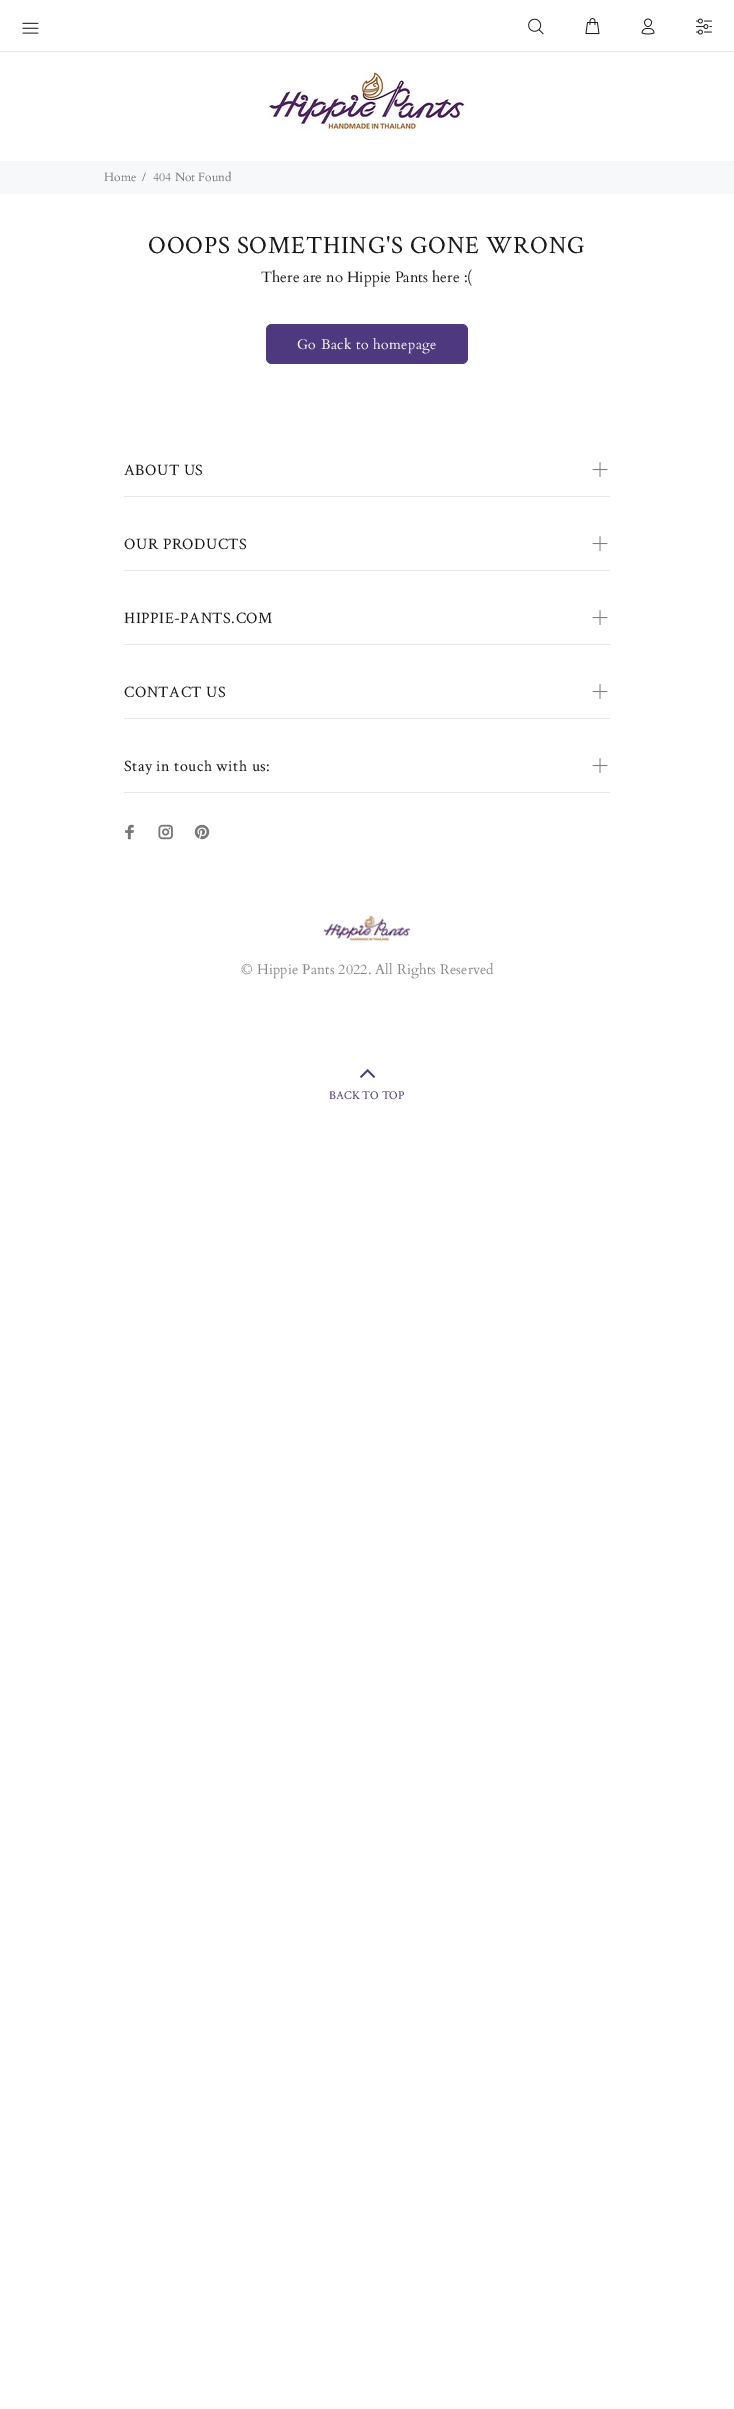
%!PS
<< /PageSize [734 2409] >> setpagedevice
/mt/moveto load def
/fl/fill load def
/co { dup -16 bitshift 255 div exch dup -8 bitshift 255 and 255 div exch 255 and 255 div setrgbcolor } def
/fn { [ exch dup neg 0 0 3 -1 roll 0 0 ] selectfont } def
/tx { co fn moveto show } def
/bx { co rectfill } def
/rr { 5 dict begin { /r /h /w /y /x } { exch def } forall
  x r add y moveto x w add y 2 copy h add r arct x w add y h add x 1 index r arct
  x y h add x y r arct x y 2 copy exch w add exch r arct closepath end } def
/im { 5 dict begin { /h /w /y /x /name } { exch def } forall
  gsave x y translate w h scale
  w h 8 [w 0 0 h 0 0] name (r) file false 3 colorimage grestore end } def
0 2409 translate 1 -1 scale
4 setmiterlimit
0 0 734 2409 16#FFFFFF bx
(media/1.raw) 22 22 17 12 im
(media/2.raw) 528 18 16 17 im
(media/3.raw) 585 18 15 17 im
(media/4.raw) 641 18 14 17 im
(media/5.raw) 695 18 17 17 im
0 51 734 1 16#E9E7E7 bx
(media/6.raw) 267 67 200 64 im
0 161 734 33 16#F7F8FA bx
16#4E387E co
266 324 202 40 6 rr fl
124 496 486 1 16#E9E7E7 bx
(media/7.raw) 592 462 16 15 im
124 570 486 1 16#E9E7E7 bx
(media/7.raw) 592 536 16 15 im
124 644 486 1 16#E9E7E7 bx
(media/7.raw) 592 610 16 15 im
124 718 486 1 16#E9E7E7 bx
(media/7.raw) 592 684 16 15 im
124 792 486 1 16#E9E7E7 bx
(media/7.raw) 592 758 16 15 im
(media/8.raw) 125 824 10 16 im
(media/9.raw) 158 824 15 16 im
(media/10.raw) 194 824 16 16 im
(media/11.raw) 321 913 90 30 im
(media/12.raw) 360 1069 16 9 im
(Home) 104 181 /Cardo-Regular 12 16#777777 tx
(/) 142 181 /Cardo-Regular 12 16#777777 tx
(404 Not Found) 153 181 /Cardo-Regular 12 16#777777 tx
/CrimsonText-Regular 25 fn
16#191919 co
148 253 mt .75 0 (OOOPS SOMETHING'S GONE WRONG) ashow
(There are no Hippie Pants here :\() 261 282 /Cardo-Regular 15 16#191919 tx
/Cardo-Regular 14 fn
16#FFFFFF co
297 349 mt .4 0 (Go Back to homepage) ashow
/CrimsonText-Regular 16 fn
16#191919 co
124 475 mt .5 0 (ABOUT US) ashow
124 549 mt .5 0 (OUR PRODUCTS) ashow
124 623 mt .5 0 (HIPPIE-PANTS.COM) ashow
124 697 mt .5 0 (CONTACT US) ashow
124 771 mt .5 0 (Stay in touch with us:) ashow
/Cardo-Regular 14 fn
16#888888 co
241 974 mt .15 0 (© Hippie Pants 2022. All Rights Reserved) ashow
(BACK TO TOP) 329 1099 /CrimsonText-Regular 12 16#4E387E tx
showpage
